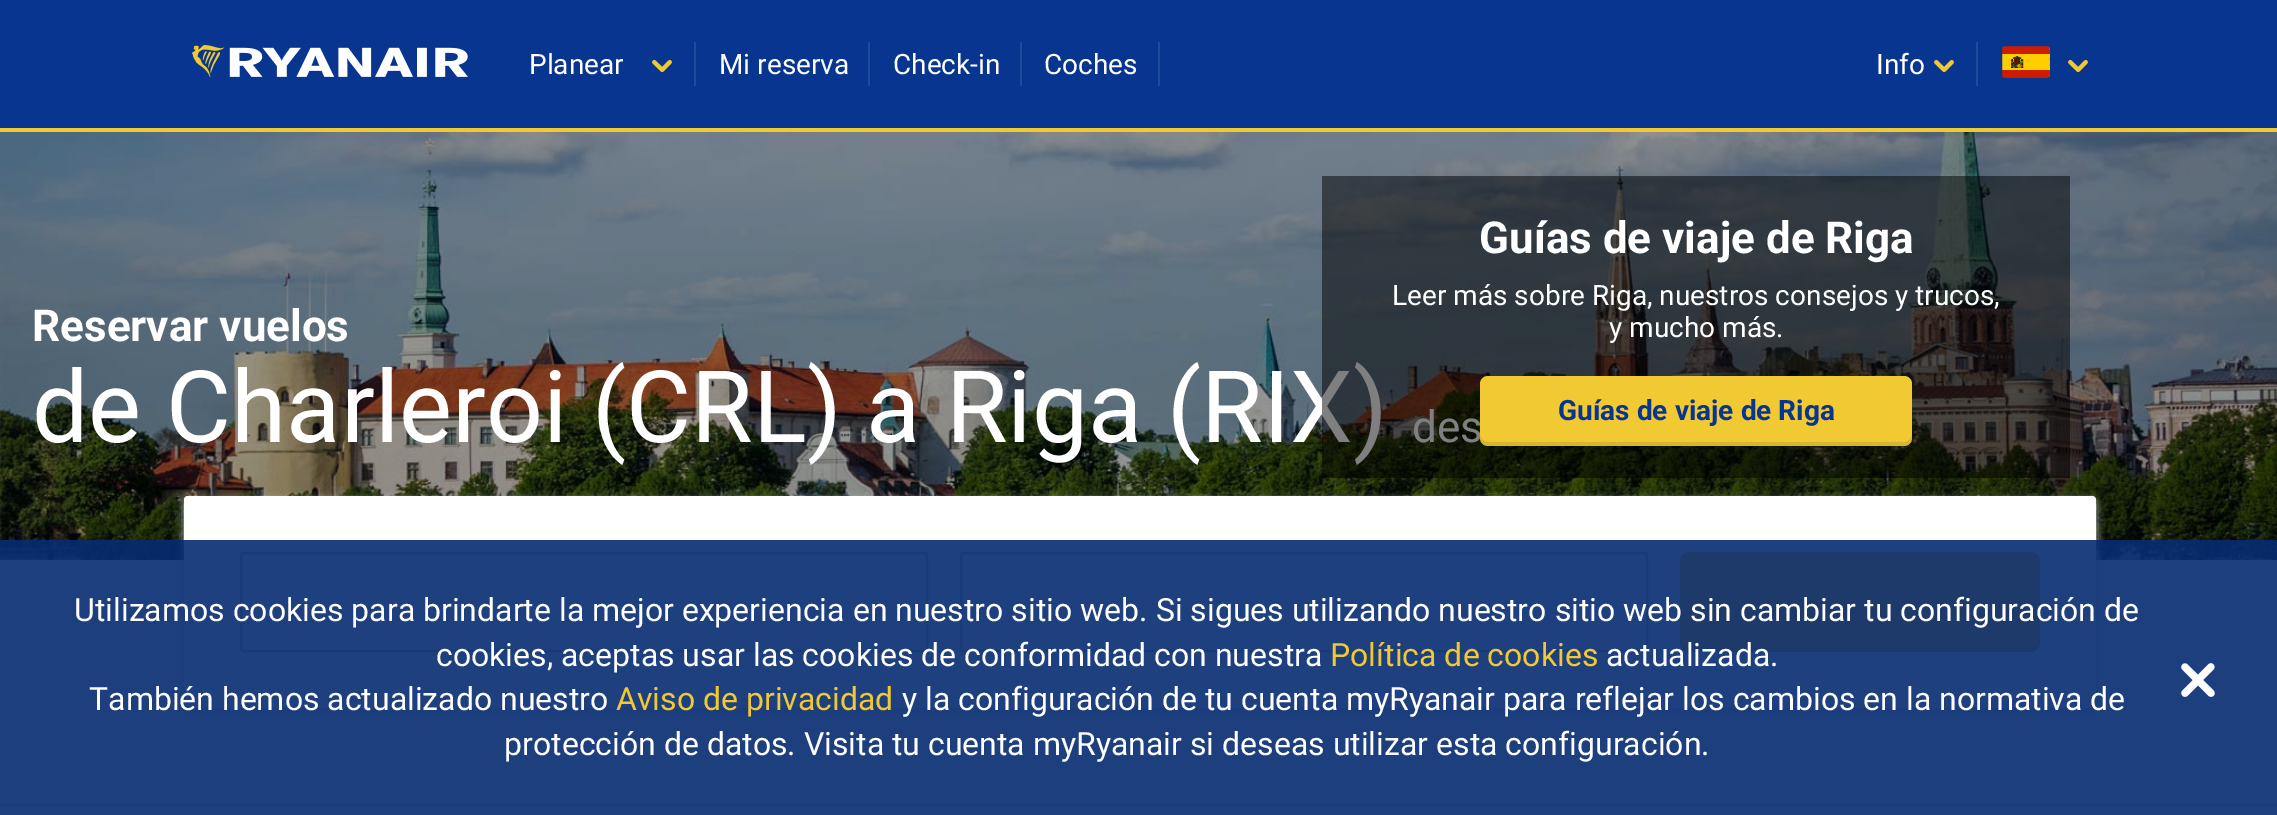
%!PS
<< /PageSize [2277 815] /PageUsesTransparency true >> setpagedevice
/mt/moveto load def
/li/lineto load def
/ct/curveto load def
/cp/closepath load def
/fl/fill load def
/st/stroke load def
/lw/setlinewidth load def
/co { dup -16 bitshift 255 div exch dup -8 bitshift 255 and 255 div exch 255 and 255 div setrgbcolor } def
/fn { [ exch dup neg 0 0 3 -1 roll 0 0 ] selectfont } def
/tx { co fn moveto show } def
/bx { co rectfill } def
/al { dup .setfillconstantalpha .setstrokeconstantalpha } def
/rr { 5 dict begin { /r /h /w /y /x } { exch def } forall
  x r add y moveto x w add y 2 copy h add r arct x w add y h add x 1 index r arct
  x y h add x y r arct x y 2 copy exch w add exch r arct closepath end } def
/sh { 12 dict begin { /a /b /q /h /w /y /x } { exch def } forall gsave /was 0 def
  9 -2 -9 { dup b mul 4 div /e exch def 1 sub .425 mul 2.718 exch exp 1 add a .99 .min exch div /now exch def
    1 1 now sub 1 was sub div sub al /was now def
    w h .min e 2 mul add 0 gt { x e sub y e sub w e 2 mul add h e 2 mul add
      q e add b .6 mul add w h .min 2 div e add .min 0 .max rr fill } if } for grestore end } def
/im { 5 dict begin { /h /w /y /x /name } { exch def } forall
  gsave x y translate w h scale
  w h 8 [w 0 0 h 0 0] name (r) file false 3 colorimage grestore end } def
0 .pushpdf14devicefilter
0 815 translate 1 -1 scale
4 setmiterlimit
0 0 2277 815 16#F4F4F4 bx
0 0 2277 128 16#073590 bx
0 128 2277 4 16#F1C933 bx
(media/1.raw) 192 45 276 33 im
(media/2.raw) 652 59 20 14 im
694 42 2 44 16#204A9C bx
868 42 2 44 16#204A9C bx
1020 42 2 44 16#204A9C bx
1158 42 2 44 16#204A9C bx
(media/2.raw) 1934 59 20 14 im
1976 42 2 44 16#204A9C bx
(media/3.raw) 2002 46 48 32 im
16#073590 co
2 lw
2001 45 50 34 3 rr st
(media/2.raw) 2068 59 20 14 im
(media/4.raw) 0 132 2277 428 im
16#D2D6D9 co
184 500 1912 212 4 4 1 sh
16#FFFFFF co
184 496 1912 212 4 rr fl
16#C7C7C7 co
241 553 686 98 3 rr st
242 648 684 2 16#FFFFFF bx
16#C7C7C7 co
961 553 686 98 3 rr st
962 648 684 2 16#FFFFFF bx
16#F1C933 co
1680 552 360 100 10 rr fl
0.1 al
16#000000 co
1680 638 mt 1680 642 li 1680 648 1684 652 1690 652 ct 2030 652 li 2036 652 2040 648 2040 642 ct 2040 638 li 2040 644 2036 648 2030 648 ct 1690 648 li 1684 648 1680 644 1680 638 ct cp fl
1 al
0 804 2277 2 16#D2D6D9 bx
0.9 al
0 540 2277 275 16#062B71 bx
1 al
(media/5.raw) 2181 663 34 34 im
(Planear) 529 74 /Roboto-Regular 28 16#FFFFFF tx
(Mi reserva) 719 74 /Roboto-Regular 28 16#FFFFFF tx
(Check-in) 893 74 /Roboto-Regular 28 16#FFFFFF tx
(Coches) 1044 74 /Roboto-Regular 28 16#FFFFFF tx
(Info) 1876 74 /Roboto-Regular 28 16#FFFFFF tx
(Reservar vuelos) 32 341 /Roboto-Bold 44 16#FFFFFF tx
(de Charleroi \(CRL\) a Riga \(RIX\)) 32 442 /Roboto-Regular 100 16#FFFFFF tx
(des) 1412 442 /Roboto-Regular 44 16#FFFFFF tx
0.5 al
1322 176 748 302 16#000000 bx
1 al
(Guías de viaje de Riga) 1479 253 /Roboto-Bold 44 16#FFFFFF tx
(Leer más sobre Riga, nuestros consejos y trucos,) 1392 305 /Roboto-Regular 28 16#FFFFFF tx
(y mucho más.) 1609 337 /Roboto-Regular 28 16#FFFFFF tx
16#F1C933 co
1480 376 432 70 8 rr fl
0.1 al
16#000000 co
1480 434 mt 1480 439 1480 445 1486 446 ct 1906 446 li 1912 445 1912 439 1912 434 ct 1912 438 1908 442 1904 442 ct 1488 442 li 1484 442 1480 438 1480 434 ct cp fl
1 al
(Guías de viaje de Riga) 1558 420 /Roboto-Bold 28 16#073590 tx
(Utilizamos cookies para brindarte la mejor experiencia en nuestro sitio web. Si sigues utilizando nuestro sitio web sin cambiar tu configuración de) 74 621 /Roboto-Regular 32 16#FFFFFF tx
(cookies, aceptas usar las cookies de conformidad con nuestra) 436 666 /Roboto-Regular 32 16#FFFFFF tx
(Política de cookies) 1330 666 /Roboto-Regular 32 16#F1C933 tx
(actualizada.) 1606 666 /Roboto-Regular 32 16#FFFFFF tx
(También hemos actualizado nuestro) 89 710 /Roboto-Regular 32 16#FFFFFF tx
(Aviso de privacidad) 616 710 /Roboto-Regular 32 16#F1C933 tx
(y la configuración de tu cuenta myRyanair para reflejar los cambios en la normativa de) 902 710 /Roboto-Regular 32 16#FFFFFF tx
(protección de datos. Visita tu cuenta myRyanair si deseas utilizar esta configuración.) 504 755 /Roboto-Regular 32 16#FFFFFF tx
.poppdf14devicefilter showpage
